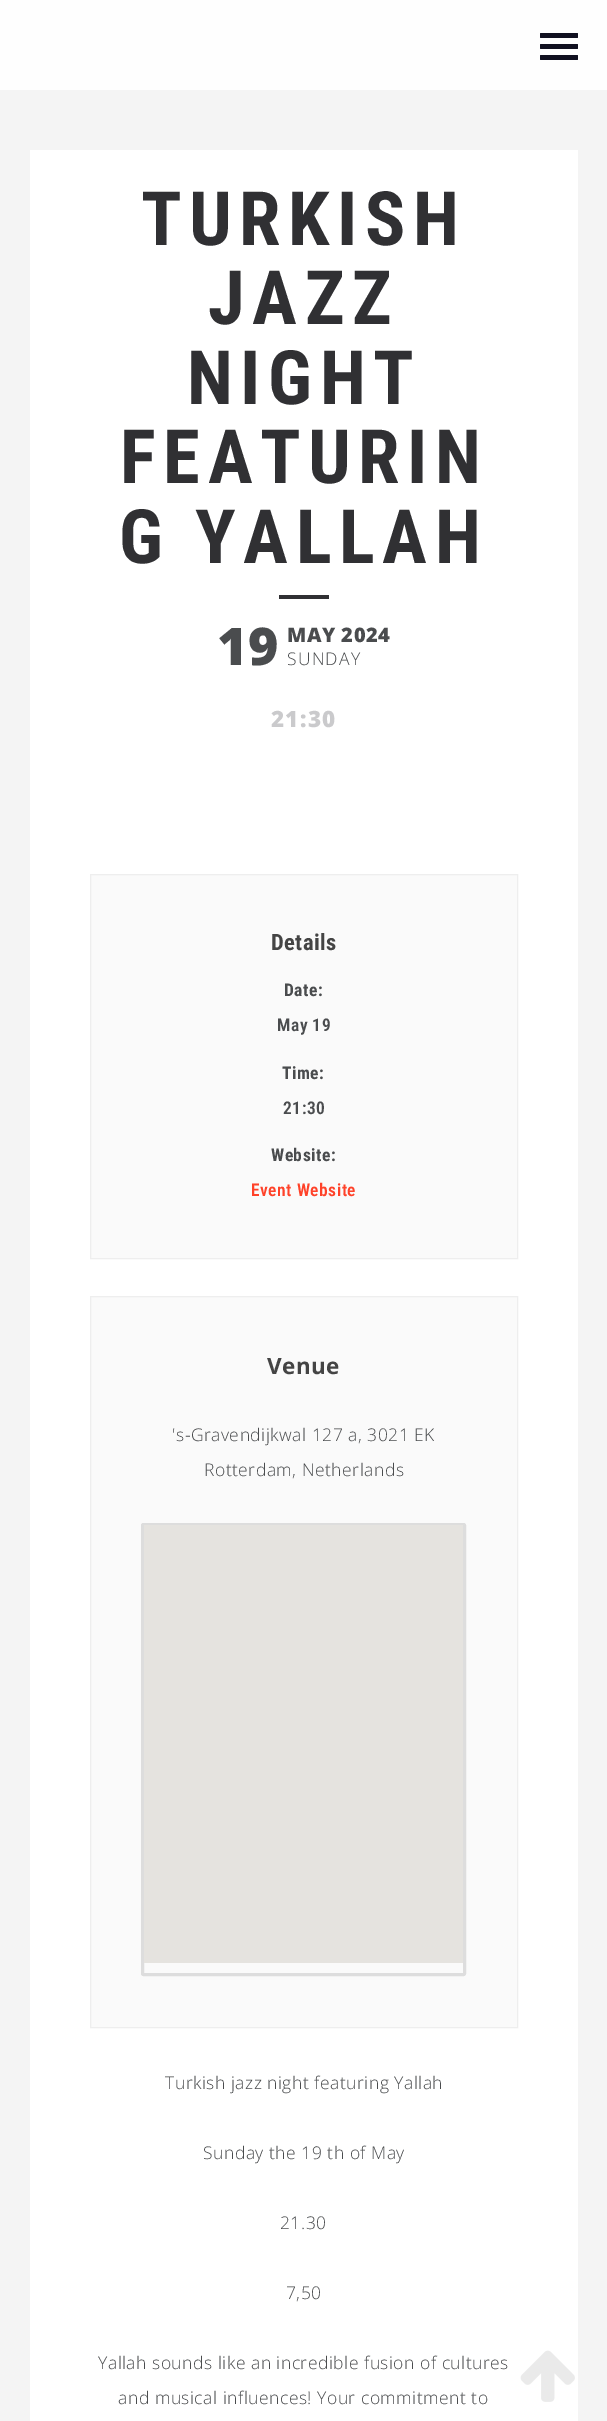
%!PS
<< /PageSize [607 2421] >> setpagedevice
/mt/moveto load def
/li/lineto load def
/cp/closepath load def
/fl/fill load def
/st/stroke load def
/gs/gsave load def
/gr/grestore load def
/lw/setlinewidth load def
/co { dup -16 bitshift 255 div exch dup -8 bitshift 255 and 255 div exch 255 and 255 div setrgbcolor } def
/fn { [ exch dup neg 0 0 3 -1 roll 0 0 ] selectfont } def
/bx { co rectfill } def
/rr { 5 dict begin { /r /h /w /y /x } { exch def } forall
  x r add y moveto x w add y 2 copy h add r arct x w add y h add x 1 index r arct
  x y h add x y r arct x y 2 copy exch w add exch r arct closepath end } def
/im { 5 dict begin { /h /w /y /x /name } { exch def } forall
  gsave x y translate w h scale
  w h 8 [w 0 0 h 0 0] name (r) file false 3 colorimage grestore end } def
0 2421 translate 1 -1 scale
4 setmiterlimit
0 0 607 2421 16#F4F4F4 bx
0 0 607 90 16#FEFEFE bx
16#101020 co
540 44 38 5 1 rr fl
540 33 38 5 1 rr fl
540 55 38 5 1 rr fl
30 150 548 2271 16#FFFFFF bx
279 595 50 4 16#303033 bx
16#FAFAFA co
90.5 874.5 mt 517.5 874.5 li 517.5 1258.5 li 90.5 1258.5 li cp gs fl gr
16#EEEEEE co
st
16#FAFAFA co
90.5 1296.5 mt 517.5 1296.5 li 517.5 2027.5 li 90.5 2027.5 li cp gs fl gr
16#EEEEEE co
st
16#DDDDDD co
3 lw
142.5 1524.5 322 450 1 rr st
144 1525 319 438 16#E5E3DF bx
(media/1.raw) 520 2350 55 52 im
/RobotoCondensed-Bold 75 fn
16#303033 co
141 245 mt 7.5 0 (TURKISH) ashow
208 324 mt 7.5 0 (JAZZ) ashow
187 404 mt 7.5 0 (NIGHT) ashow
120 483 mt 7.5 0 (FEATURIN) ashow
119 563 mt 7.5 0 (G YALLAH) ashow
/OpenSans-ExtraBold 52 fn
16#4A4C4E co
217 665 mt .5 0 (19) ashow
/OpenSans-ExtraBold 20 fn
287 642 mt .5 0 (MAY 2024) ashow
/OpenSans-Light 17.5 fn
287 665 mt 1.25 0 (SUNDAY) ashow
/OpenSans-ExtraBold 22.5 fn
16#CACACC co
271 727 mt 1.25 0 (21:30) ashow
/RobotoCondensed-Bold 22.5 fn
16#444444 co
271 950 mt .5 0 (Details) ashow
/RobotoCondensed-Bold 17.5 fn
16#4A4C4E co
284 996 mt .5 0 (Date:) ashow
/RobotoCondensed-SemiBold 17.5 fn
277 1031 mt .5 0 (May 19) ashow
/RobotoCondensed-Bold 17.5 fn
282 1079 mt .5 0 (Time:) ashow
/RobotoCondensed-SemiBold 17.5 fn
283 1114 mt .5 0 (21:30) ashow
/RobotoCondensed-Bold 17.5 fn
271 1161 mt .5 0 (Website:) ashow
/RobotoCondensed-SemiBold 17.5 fn
16#FF4229 co
251 1196 mt .5 0 (Event Website) ashow
/OpenSans-Bold 22.5 fn
16#444444 co
267 1374 mt .5 0 (Venue) ashow
/OpenSans-Light 17.5 fn
16#4A4C4E co
172 1441 mt .5 0 ('s-Gravendijkwal 127 a, 3021 EK) ashow
204 1476 mt .5 0 (Rotterdam, Netherlands) ashow
165 2089 mt .5 0 (Turkish jazz night featuring Yallah) ashow
203 2159 mt .5 0 (Sunday the 19 th of May) ashow
280 2229 mt .5 0 (21.30) ashow
286 2299 mt .5 0 (7,50) ashow
98 2369 mt .5 0 (Yallah sounds like an incredible fusion of cultures) ashow
118 2404 mt .5 0 (and musical influences! Your commitment to) ashow
showpage
